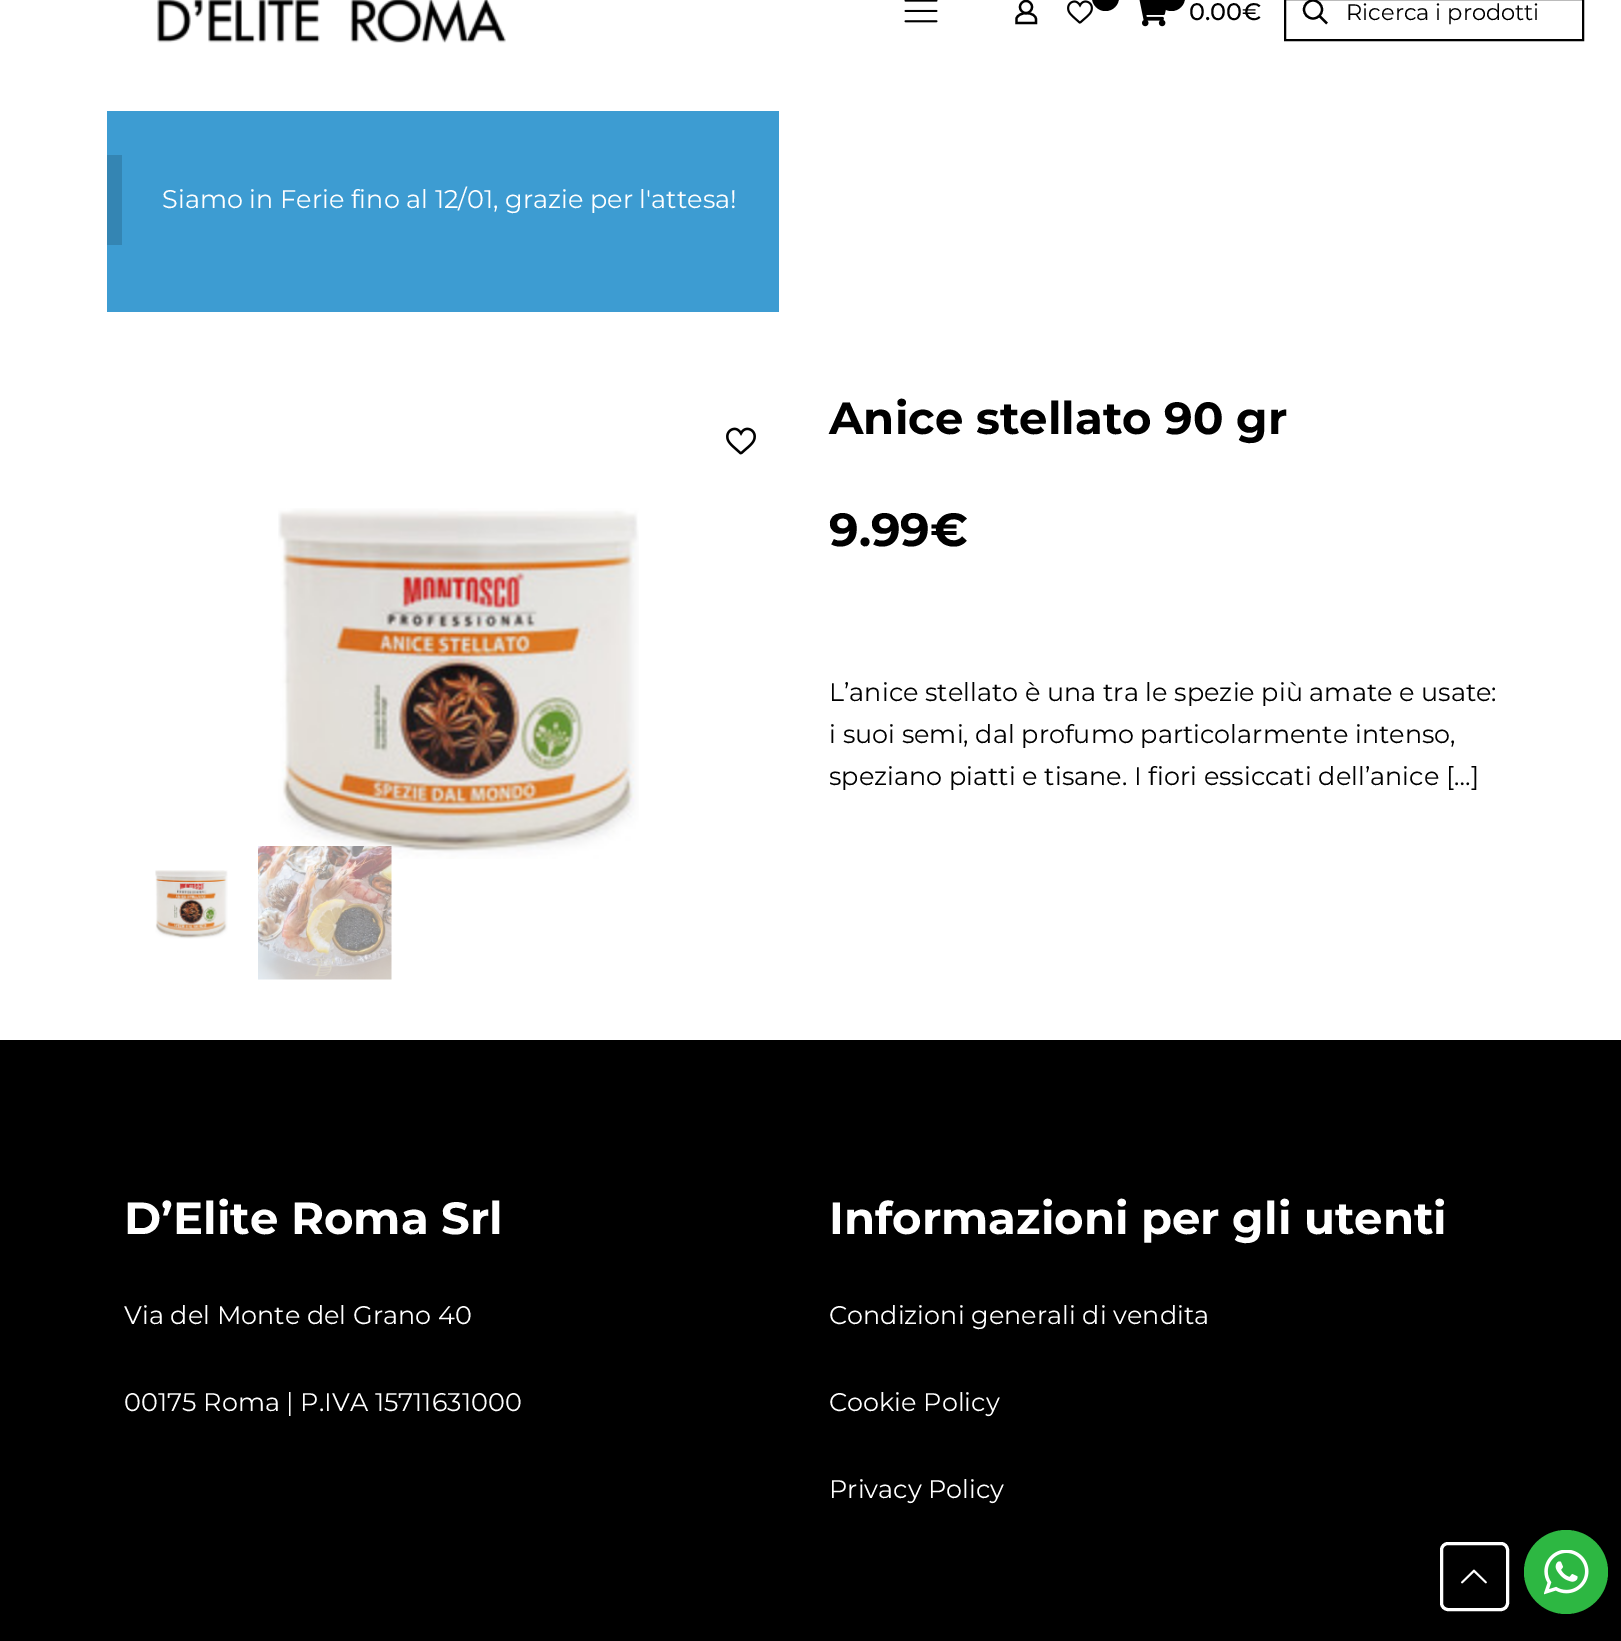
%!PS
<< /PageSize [1621 1641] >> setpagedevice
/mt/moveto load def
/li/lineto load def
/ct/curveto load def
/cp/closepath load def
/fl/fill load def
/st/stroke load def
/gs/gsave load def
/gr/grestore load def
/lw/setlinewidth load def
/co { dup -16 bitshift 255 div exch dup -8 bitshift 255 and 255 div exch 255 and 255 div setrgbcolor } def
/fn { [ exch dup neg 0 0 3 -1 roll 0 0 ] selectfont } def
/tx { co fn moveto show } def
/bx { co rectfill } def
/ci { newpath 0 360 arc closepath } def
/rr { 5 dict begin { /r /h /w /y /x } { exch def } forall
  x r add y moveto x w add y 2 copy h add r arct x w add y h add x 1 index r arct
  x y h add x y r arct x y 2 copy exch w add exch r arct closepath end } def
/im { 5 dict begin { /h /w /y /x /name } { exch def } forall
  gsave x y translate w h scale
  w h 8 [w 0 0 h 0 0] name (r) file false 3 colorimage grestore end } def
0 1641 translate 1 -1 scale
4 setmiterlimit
0 0 1621 1641 16#FFFFFF bx
(media/1.raw) 157 0 349 43 im
(media/2.raw) 904 0 34 23 im
16#000000 co
2.2 lw
1026 7 6 ci st
1036 19.5 mt 1036 23 li 1016.5 23 li 1016.5 18.5 li 1018.5 11 1036 11.5 1036 19.5 ct cp st
(media/3.raw) 1067 0 26 24 im
1092 -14 27 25 13.5 rr fl
(media/4.raw) 1139 0 27 27 im
1158 -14 27 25 13.5 rr fl
2 lw
1285 -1 298 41 rectstroke
2.2 lw
1313 9.5 9 ci st
1319.5 16 mt 1327 23.5 li st
107 111 672 201 16#3D9CD2 bx
107 155 15 90 16#3485B3 bx
(media/5.raw) 726 427 30 28 im
(media/6.raw) 278 508 361 351 im
(media/7.raw) 155 870 73 69 im
(media/8.raw) 258 846 134 134 im
0 1040 1621 601 16#000000 bx
16#FFFFFF co
3 lw
1441.5 1543.5 66 66 6.5 rr st
(media/9.raw) 1461 1569 26 15 im
16#2DB742 co
1566 1572 42 ci fl
(media/10.raw) 1544 1550 45 45 im
(0.00€) 1189 20 /Montserrat-Medium 24 16#000000 tx
(Ricerca i prodotti) 1346 20 /Montserrat-Regular 22.5 16#000000 tx
(Siamo in Ferie fino al 12/01, grazie per l'attesa!) 162 208 /Montserrat-Regular 25.5 16#FFFFFF tx
(Anice stellato 90 gr) 829 434 /Montserrat-Bold 45 16#000000 tx
(9.99€) 829 546 /Montserrat-Bold 46.5 16#000000 tx
(L’anice stellato è una tra le spezie più amate e usate:) 829 701 /Montserrat-Regular 25.5 16#000000 tx
(i suoi semi, dal profumo particolarmente intenso,) 829 743 /Montserrat-Regular 25.5 16#000000 tx
gs
830 671 669 148 rectclip
(speziano piatti e tisane. I fiori essiccati dell’anice) 829 785 /Montserrat-Regular 25.5 16#000000 tx
gr
([…]) 1446 785 /Montserrat-Regular 25.5 16#000000 tx
(D’Elite Roma Srl) 124 1234 /Montserrat-Bold 45 16#FFFFFF tx
(Via del Monte del Grano 40) 124 1324 /Montserrat-Regular 25.5 16#FFFFFF tx
(00175 Roma | P.IVA 15711631000) 124 1411 /Montserrat-Regular 25.5 16#FFFFFF tx
(Informazioni per gli utenti) 829 1234 /Montserrat-Bold 45 16#FFFFFF tx
(Condizioni generali di vendita) 829 1324 /Montserrat-Regular 25.5 16#FFFFFF tx
(Cookie Policy) 829 1411 /Montserrat-Regular 25.5 16#FFFFFF tx
(Privacy Policy) 829 1498 /Montserrat-Regular 25.5 16#FFFFFF tx
showpage
